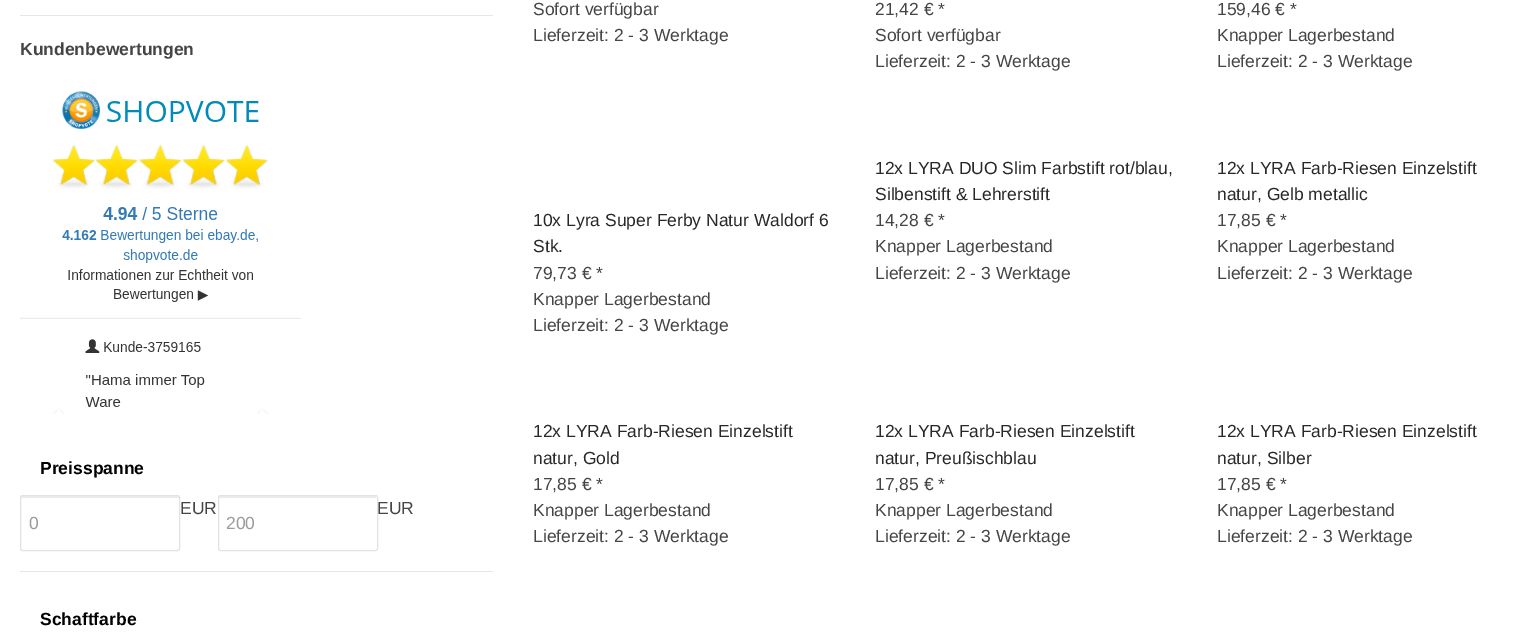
%!PS
<< /PageSize [1538 644] >> setpagedevice
/mt/moveto load def
/li/lineto load def
/ct/curveto load def
/cp/closepath load def
/fl/fill load def
/st/stroke load def
/co { dup -16 bitshift 255 div exch dup -8 bitshift 255 and 255 div exch 255 and 255 div setrgbcolor } def
/fn { [ exch dup neg 0 0 3 -1 roll 0 0 ] selectfont } def
/tx { co fn moveto show } def
/bx { co rectfill } def
/rr { 5 dict begin { /r /h /w /y /x } { exch def } forall
  x r add y moveto x w add y 2 copy h add r arct x w add y h add x 1 index r arct
  x y h add x y r arct x y 2 copy exch w add exch r arct closepath end } def
/im { 5 dict begin { /h /w /y /x /name } { exch def } forall
  gsave x y translate w h scale
  w h 8 [w 0 0 h 0 0] name (r) file false 3 colorimage grestore end } def
0 644 translate 1 -1 scale
4 setmiterlimit
0 0 1538 644 16#FFFFFF bx
20 15 473 1 16#E6E6E6 bx
(media/1.raw) 20 91 281 323 im
16#ECECEC co
22 498 mt 178 498 li 179 499 li 179 498 179 496 178 496 ct 22 496 li 21 496 21 498 21 499 ct cp fl
16#E2E2E2 co
20.5 495.5 159 55 2 rr st
16#ECECEC co
220 498 mt 375 498 li 376 498 376 498 376 499 ct 376 498 376 496 375 496 ct 220 496 li 219 496 219 498 219 499 ct 219 498 219 498 220 498 ct cp fl
16#E2E2E2 co
218.5 495.5 159 55 2 rr st
20 571 473 1 16#E6E6E6 bx
(Kundenbewertungen) 20 55 /LiberationSans-Bold 17.5 16#454545 tx
(Preisspanne) 40 474 /LiberationSans-Bold 17.5 16#000000 tx
(EUR) 180 514 /LiberationSans-Regular 17.5 16#454545 tx
(0) 29 529 /LiberationSans-Regular 17.5 16#9B9B9B tx
(EUR) 377 514 /LiberationSans-Regular 17.5 16#454545 tx
(200) 226 529 /LiberationSans-Regular 17.5 16#9B9B9B tx
(Schaftfarbe) 40 625 /LiberationSans-Bold 17.5 16#000000 tx
(Sofort verfügbar) 533 15 /LiberationSans-Regular 17.5 16#454545 tx
(Lieferzeit: 2 - 3 Werktage) 533 41 /LiberationSans-Regular 17.5 16#454545 tx
(21,42 € *) 875 15 /LiberationSans-Regular 17.5 16#454545 tx
(Sofort verfügbar) 875 41 /LiberationSans-Regular 17.5 16#454545 tx
(Lieferzeit: 2 - 3 Werktage) 875 67 /LiberationSans-Regular 17.5 16#454545 tx
(159,46 € *) 1217 15 /LiberationSans-Regular 17.5 16#454545 tx
(Knapper Lagerbestand) 1217 41 /LiberationSans-Regular 17.5 16#454545 tx
(Lieferzeit: 2 - 3 Werktage) 1217 67 /LiberationSans-Regular 17.5 16#454545 tx
(10x Lyra Super Ferby Natur Waldorf 6) 533 226 /LiberationSans-Regular 17.5 16#282828 tx
(Stk.) 533 252 /LiberationSans-Regular 17.5 16#282828 tx
(79,73 € *) 533 279 /LiberationSans-Regular 17.5 16#454545 tx
(Knapper Lagerbestand) 533 305 /LiberationSans-Regular 17.5 16#454545 tx
(Lieferzeit: 2 - 3 Werktage) 533 331 /LiberationSans-Regular 17.5 16#454545 tx
(12x LYRA DUO Slim Farbstift rot/blau,) 875 174 /LiberationSans-Regular 17.5 16#282828 tx
(Silbenstift & Lehrerstift) 875 200 /LiberationSans-Regular 17.5 16#282828 tx
(14,28 € *) 875 226 /LiberationSans-Regular 17.5 16#454545 tx
(Knapper Lagerbestand) 875 252 /LiberationSans-Regular 17.5 16#454545 tx
(Lieferzeit: 2 - 3 Werktage) 875 279 /LiberationSans-Regular 17.5 16#454545 tx
(12x LYRA Farb-Riesen Einzelstift) 1217 174 /LiberationSans-Regular 17.5 16#282828 tx
(natur, Gelb metallic) 1217 200 /LiberationSans-Regular 17.5 16#282828 tx
(17,85 € *) 1217 226 /LiberationSans-Regular 17.5 16#454545 tx
(Knapper Lagerbestand) 1217 252 /LiberationSans-Regular 17.5 16#454545 tx
(Lieferzeit: 2 - 3 Werktage) 1217 279 /LiberationSans-Regular 17.5 16#454545 tx
(12x LYRA Farb-Riesen Einzelstift) 533 437 /LiberationSans-Regular 17.5 16#282828 tx
(natur, Gold) 533 464 /LiberationSans-Regular 17.5 16#282828 tx
(17,85 € *) 533 490 /LiberationSans-Regular 17.5 16#454545 tx
(Knapper Lagerbestand) 533 516 /LiberationSans-Regular 17.5 16#454545 tx
(Lieferzeit: 2 - 3 Werktage) 533 542 /LiberationSans-Regular 17.5 16#454545 tx
(12x LYRA Farb-Riesen Einzelstift) 875 437 /LiberationSans-Regular 17.5 16#282828 tx
(natur, Preußischblau) 875 464 /LiberationSans-Regular 17.5 16#282828 tx
(17,85 € *) 875 490 /LiberationSans-Regular 17.5 16#454545 tx
(Knapper Lagerbestand) 875 516 /LiberationSans-Regular 17.5 16#454545 tx
(Lieferzeit: 2 - 3 Werktage) 875 542 /LiberationSans-Regular 17.5 16#454545 tx
(12x LYRA Farb-Riesen Einzelstift) 1217 437 /LiberationSans-Regular 17.5 16#282828 tx
(natur, Silber) 1217 464 /LiberationSans-Regular 17.5 16#282828 tx
(17,85 € *) 1217 490 /LiberationSans-Regular 17.5 16#454545 tx
(Knapper Lagerbestand) 1217 516 /LiberationSans-Regular 17.5 16#454545 tx
(Lieferzeit: 2 - 3 Werktage) 1217 542 /LiberationSans-Regular 17.5 16#454545 tx
showpage
